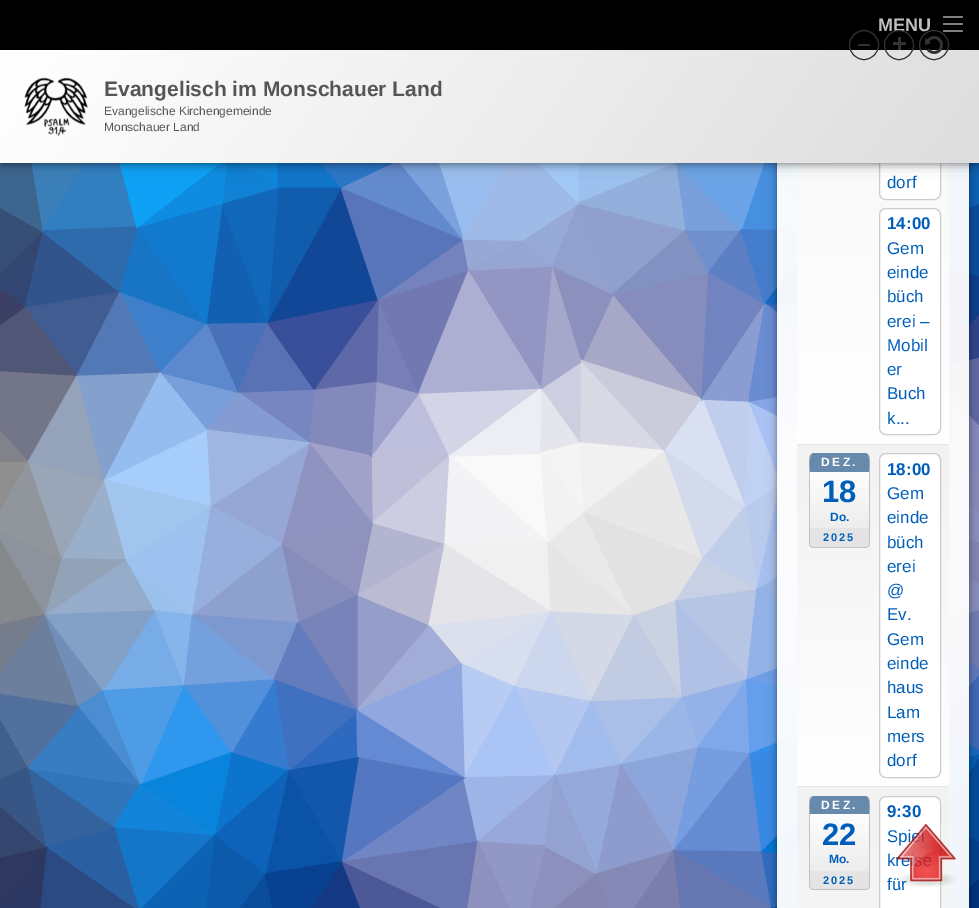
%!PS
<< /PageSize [979 908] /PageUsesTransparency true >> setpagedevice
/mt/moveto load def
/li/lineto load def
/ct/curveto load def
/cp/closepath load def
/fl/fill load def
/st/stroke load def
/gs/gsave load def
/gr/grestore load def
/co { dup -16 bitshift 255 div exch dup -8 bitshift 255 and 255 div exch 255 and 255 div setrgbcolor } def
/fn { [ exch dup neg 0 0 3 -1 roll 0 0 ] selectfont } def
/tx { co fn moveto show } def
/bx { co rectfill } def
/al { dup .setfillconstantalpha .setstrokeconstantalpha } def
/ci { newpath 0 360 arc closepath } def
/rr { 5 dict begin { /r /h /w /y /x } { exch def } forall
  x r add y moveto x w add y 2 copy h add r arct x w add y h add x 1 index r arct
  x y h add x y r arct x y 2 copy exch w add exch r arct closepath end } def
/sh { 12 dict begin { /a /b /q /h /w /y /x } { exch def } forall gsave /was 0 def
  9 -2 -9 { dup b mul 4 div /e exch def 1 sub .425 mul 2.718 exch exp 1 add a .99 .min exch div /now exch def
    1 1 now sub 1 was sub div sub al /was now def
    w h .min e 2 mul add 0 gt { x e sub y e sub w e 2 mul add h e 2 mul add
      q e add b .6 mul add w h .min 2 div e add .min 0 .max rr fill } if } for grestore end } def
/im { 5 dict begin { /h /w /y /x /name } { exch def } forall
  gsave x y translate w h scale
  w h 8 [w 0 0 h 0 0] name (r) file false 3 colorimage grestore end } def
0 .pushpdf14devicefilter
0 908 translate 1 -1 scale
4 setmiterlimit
0 0 979 908 16#FFFFFF bx
(media/4.raw) 0 163 979 745 im
gs
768 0 mt 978 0 li 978 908 li 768 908 li cp 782 -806 mt 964 -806 li 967 -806 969 -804 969 -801 ct 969 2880 li 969 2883 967 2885 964 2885 ct 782 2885 li 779 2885 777 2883 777 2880 ct 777 -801 li 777 -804 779 -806 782 -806 ct cp eoclip newpath
16#000000 co
777 -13 192 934 5 2.5 .25 sh
gr
gs
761 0 mt 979 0 li 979 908 li 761 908 li cp 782 -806 mt 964 -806 li 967 -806 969 -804 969 -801 ct 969 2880 li 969 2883 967 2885 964 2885 ct 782 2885 li 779 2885 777 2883 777 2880 ct 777 -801 li 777 -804 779 -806 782 -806 ct cp eoclip newpath
16#000000 co
777 -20 192 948 5 5 .25 sh
gr
0.95 al
777 163 192 745 16#FFFFFF bx
1 al
gs 797 163 mt 949 163 li 949 444 li 797 444 li cp clip newpath
<< /ShadingType 2 /ColorSpace /DeviceRGB /Coords [873 -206 873 444] /Extend [true true] /Function << /FunctionType 3 /Domain [0 1] /Functions [<< /FunctionType 2 /Domain [0 1] /C0 [.949 .949 .949] /C1 [.949 .949 .949] /N 1 >> << /FunctionType 2 /Domain [0 1] /C0 [.949 .949 .949] /C1 [1 1 1] /N 1 >>] /Bounds [.03] /Encode [0 1 0 1] >> >> shfill gr
879.5 -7.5 61 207 6.5 rr gs fl gr
16#CCCCCC co
st
16#000000 co
2 52 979 113 0 3.5 .3 sh
0 50 979 113 0 7.5 .2 sh
0 0 979 50 16#000000 bx
16#808080 co
943 16 20 2 1 rr fl
943 23 20 2 1 rr fl
943 30 20 2 1 rr fl
gs 0 50 mt 979 50 li 979 163 li 0 163 li cp clip newpath
<< /ShadingType 2 /ColorSpace /DeviceRGB /Coords [134 -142 845 355] /Extend [true true] /Function << /FunctionType 2 /Domain [0 1] /C0 [1 1 1] /C1 [.867 .867 .867] /N 1 >> >> shfill gr
(media/1.raw) 24 77 64 59 im
16#FFFFFF co
879.5 208.5 61 226 6.5 rr gs fl gr
16#CCCCCC co
st
gs 797 445 mt 949 445 li 949 786 li 797 786 li cp clip newpath
<< /ShadingType 2 /ColorSpace /DeviceRGB /Coords [873 445 873 786] /Extend [true true] /Function << /FunctionType 3 /Domain [0 1] /Functions [<< /FunctionType 2 /Domain [0 1] /C0 [.949 .949 .949] /C1 [.949 .949 .949] /N 1 >> << /FunctionType 2 /Domain [0 1] /C0 [.949 .949 .949] /C1 [1 1 1] /N 1 >>] /Bounds [.05] /Encode [0 1 0 1] >> >> shfill gr
797 444 152 1 16#E5E5E5 bx
gs
809 453 61 95 5 rr clip newpath
gs 810 453 mt 869 453 li 869 547 li 810 547 li cp clip newpath
<< /ShadingType 2 /ColorSpace /DeviceRGB /Coords [840 453 840 547] /Extend [true true] /Function << /FunctionType 3 /Domain [0 1] /Functions [<< /FunctionType 2 /Domain [0 1] /C0 [1 1 1] /C1 [1 1 1] /N 1 >> << /FunctionType 2 /Domain [0 1] /C0 [1 1 1] /C1 [.906 .906 .906] /N 1 >>] /Bounds [.16] /Encode [0 1 0 1] >> >> shfill gr
gr
16#C2C2C2 co
814 453 mt 865 453 li 868 453 870 455 870 458 ct 870 543 li 870 546 868 548 865 548 ct 814 548 li 811 548 809 546 809 543 ct 809 458 li 809 455 811 453 814 453 ct cp 814 453 mt 865 453 li 867 453 869 455 869 458 ct 869 543 li 869 545 867 547 865 547 ct 814 547 li 812 547 810 545 810 543 ct 810 458 li 810 455 812 453 814 453 ct cp eofill
16#6689AC co
814 453 mt 808 453 810 468 810 472 ct 869 472 li 869 468 871 453 865 453 ct cp fl
16#E4E4E4 co
810 528 mt 810 543 li 810 545 812 547 814 547 ct 865 547 li 867 547 869 545 869 543 ct 869 528 li cp fl
16#FFFFFF co
879.5 453.5 61 324 6.5 rr gs fl gr
16#CCCCCC co
st
gs 797 787 mt 949 787 li 949 908 li 797 908 li cp clip newpath
<< /ShadingType 2 /ColorSpace /DeviceRGB /Coords [873 787 873 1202] /Extend [true true] /Function << /FunctionType 3 /Domain [0 1] /Functions [<< /FunctionType 2 /Domain [0 1] /C0 [.949 .949 .949] /C1 [.949 .949 .949] /N 1 >> << /FunctionType 2 /Domain [0 1] /C0 [.949 .949 .949] /C1 [1 1 1] /N 1 >>] /Bounds [.04] /Encode [0 1 0 1] >> >> shfill gr
797 786 152 1 16#E5E5E5 bx
gs
809 796 61 94 5 rr clip newpath
gs 810 796 mt 869 796 li 869 889 li 810 889 li cp clip newpath
<< /ShadingType 2 /ColorSpace /DeviceRGB /Coords [840 796 840 889] /Extend [true true] /Function << /FunctionType 3 /Domain [0 1] /Functions [<< /FunctionType 2 /Domain [0 1] /C0 [1 1 1] /C1 [1 1 1] /N 1 >> << /FunctionType 2 /Domain [0 1] /C0 [1 1 1] /C1 [.906 .906 .906] /N 1 >>] /Bounds [.16] /Encode [0 1 0 1] >> >> shfill gr
gr
16#C2C2C2 co
814 796 mt 865 796 li 868 796 870 798 870 801 ct 870 885 li 870 888 868 890 865 890 ct 814 890 li 811 890 809 888 809 885 ct 809 801 li 809 798 811 796 814 796 ct cp 814 796 mt 865 796 li 867 796 869 798 869 801 ct 869 885 li 869 887 867 889 865 889 ct 814 889 li 812 889 810 887 810 885 ct 810 801 li 810 798 812 796 814 796 ct cp eofill
16#6689AC co
814 796 mt 808 796 810 810 810 814 ct 869 814 li 869 810 871 796 865 796 ct cp fl
16#E4E4E4 co
810 871 mt 810 885 li 810 887 812 889 814 889 ct 865 889 li 867 889 869 887 869 885 ct 869 871 li cp fl
16#FFFFFF co
879.5 796.5 61 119 6.5 rr gs fl gr
16#CCCCCC co
st
16#333333 co
864 45 14.5 ci st
858 44 12 2 16#333333 bx
(MENU) 878 31 /LiberationSans-Bold 18 16#BFBFBF tx
(Evangelisch im Monschauer Land) 104 96 /LiberationSans-Bold 21 16#555555 tx
(Evangelische Kirchengemeinde) 104 115 /LiberationSans-Regular 12 16#555555 tx
(Monschauer Land) 104 131 /LiberationSans-Regular 12 16#555555 tx
(dorf) 887 188 /LiberationSans-Regular 17 16#005EBB tx
(14:00) 887 229 /LiberationSans-Bold 17 16#005EBB tx
(Gem) 887 254 /LiberationSans-Regular 17 16#005EBB tx
(einde) 887 278 /LiberationSans-Regular 17 16#005EBB tx
(büch) 887 302 /LiberationSans-Regular 17 16#005EBB tx
(erei –) 887 327 /LiberationSans-Regular 17 16#005EBB tx
(Mobil) 887 351 /LiberationSans-Regular 17 16#005EBB tx
(er) 887 375 /LiberationSans-Regular 17 16#005EBB tx
(Buch) 887 399 /LiberationSans-Regular 17 16#005EBB tx
(k...) 887 424 /LiberationSans-Regular 17 16#005EBB tx
/LiberationSans-Bold 12 fn
16#FFFFFF co
821 466 mt 2.5 0 (DEZ.) ashow
(18) 822 502 /LiberationSans-Bold 31 16#005EBB tx
(Do.) 830 521 /LiberationSans-Bold 12 16#005EBB tx
/LiberationSans-Bold 11 fn
823 541 mt 2 0 (2025) ashow
(18:00) 887 475 /LiberationSans-Bold 17 16#005EBB tx
(Gem) 887 499 /LiberationSans-Regular 17 16#005EBB tx
(einde) 887 523 /LiberationSans-Regular 17 16#005EBB tx
(büch) 887 548 /LiberationSans-Regular 17 16#005EBB tx
(erei) 887 572 /LiberationSans-Regular 17 16#005EBB tx
(@) 887 596 /LiberationSans-Regular 17 16#005EBB tx
(Ev.) 887 620 /LiberationSans-Regular 17 16#005EBB tx
(Gem) 887 645 /LiberationSans-Regular 17 16#005EBB tx
(einde) 887 669 /LiberationSans-Regular 17 16#005EBB tx
(haus) 887 693 /LiberationSans-Regular 17 16#005EBB tx
(Lam) 887 718 /LiberationSans-Regular 17 16#005EBB tx
(mers) 887 742 /LiberationSans-Regular 17 16#005EBB tx
(dorf) 887 766 /LiberationSans-Regular 17 16#005EBB tx
/LiberationSans-Bold 12 fn
16#FFFFFF co
821 809 mt 2.5 0 (DEZ.) ashow
(22) 822 845 /LiberationSans-Bold 31 16#005EBB tx
(Mo.) 829 863 /LiberationSans-Bold 12 16#005EBB tx
/LiberationSans-Bold 11 fn
823 884 mt 2 0 (2025) ashow
(9:30) 887 817 /LiberationSans-Bold 17 16#005EBB tx
(Spi) 887 842 /LiberationSans-Regular 17 16#005EBB tx
(kre) 887 866 /LiberationSans-Regular 17 16#005EBB tx
(für) 887 890 /LiberationSans-Regular 17 16#005EBB tx
16#333333 co
899 45 14.5 ci st
(media/2.raw) 893 37 13 13 im
934 45 14.5 ci st
(media/3.raw) 925 36 18 18 im
(media/5.raw) 896 824 60 63 im
.poppdf14devicefilter showpage
